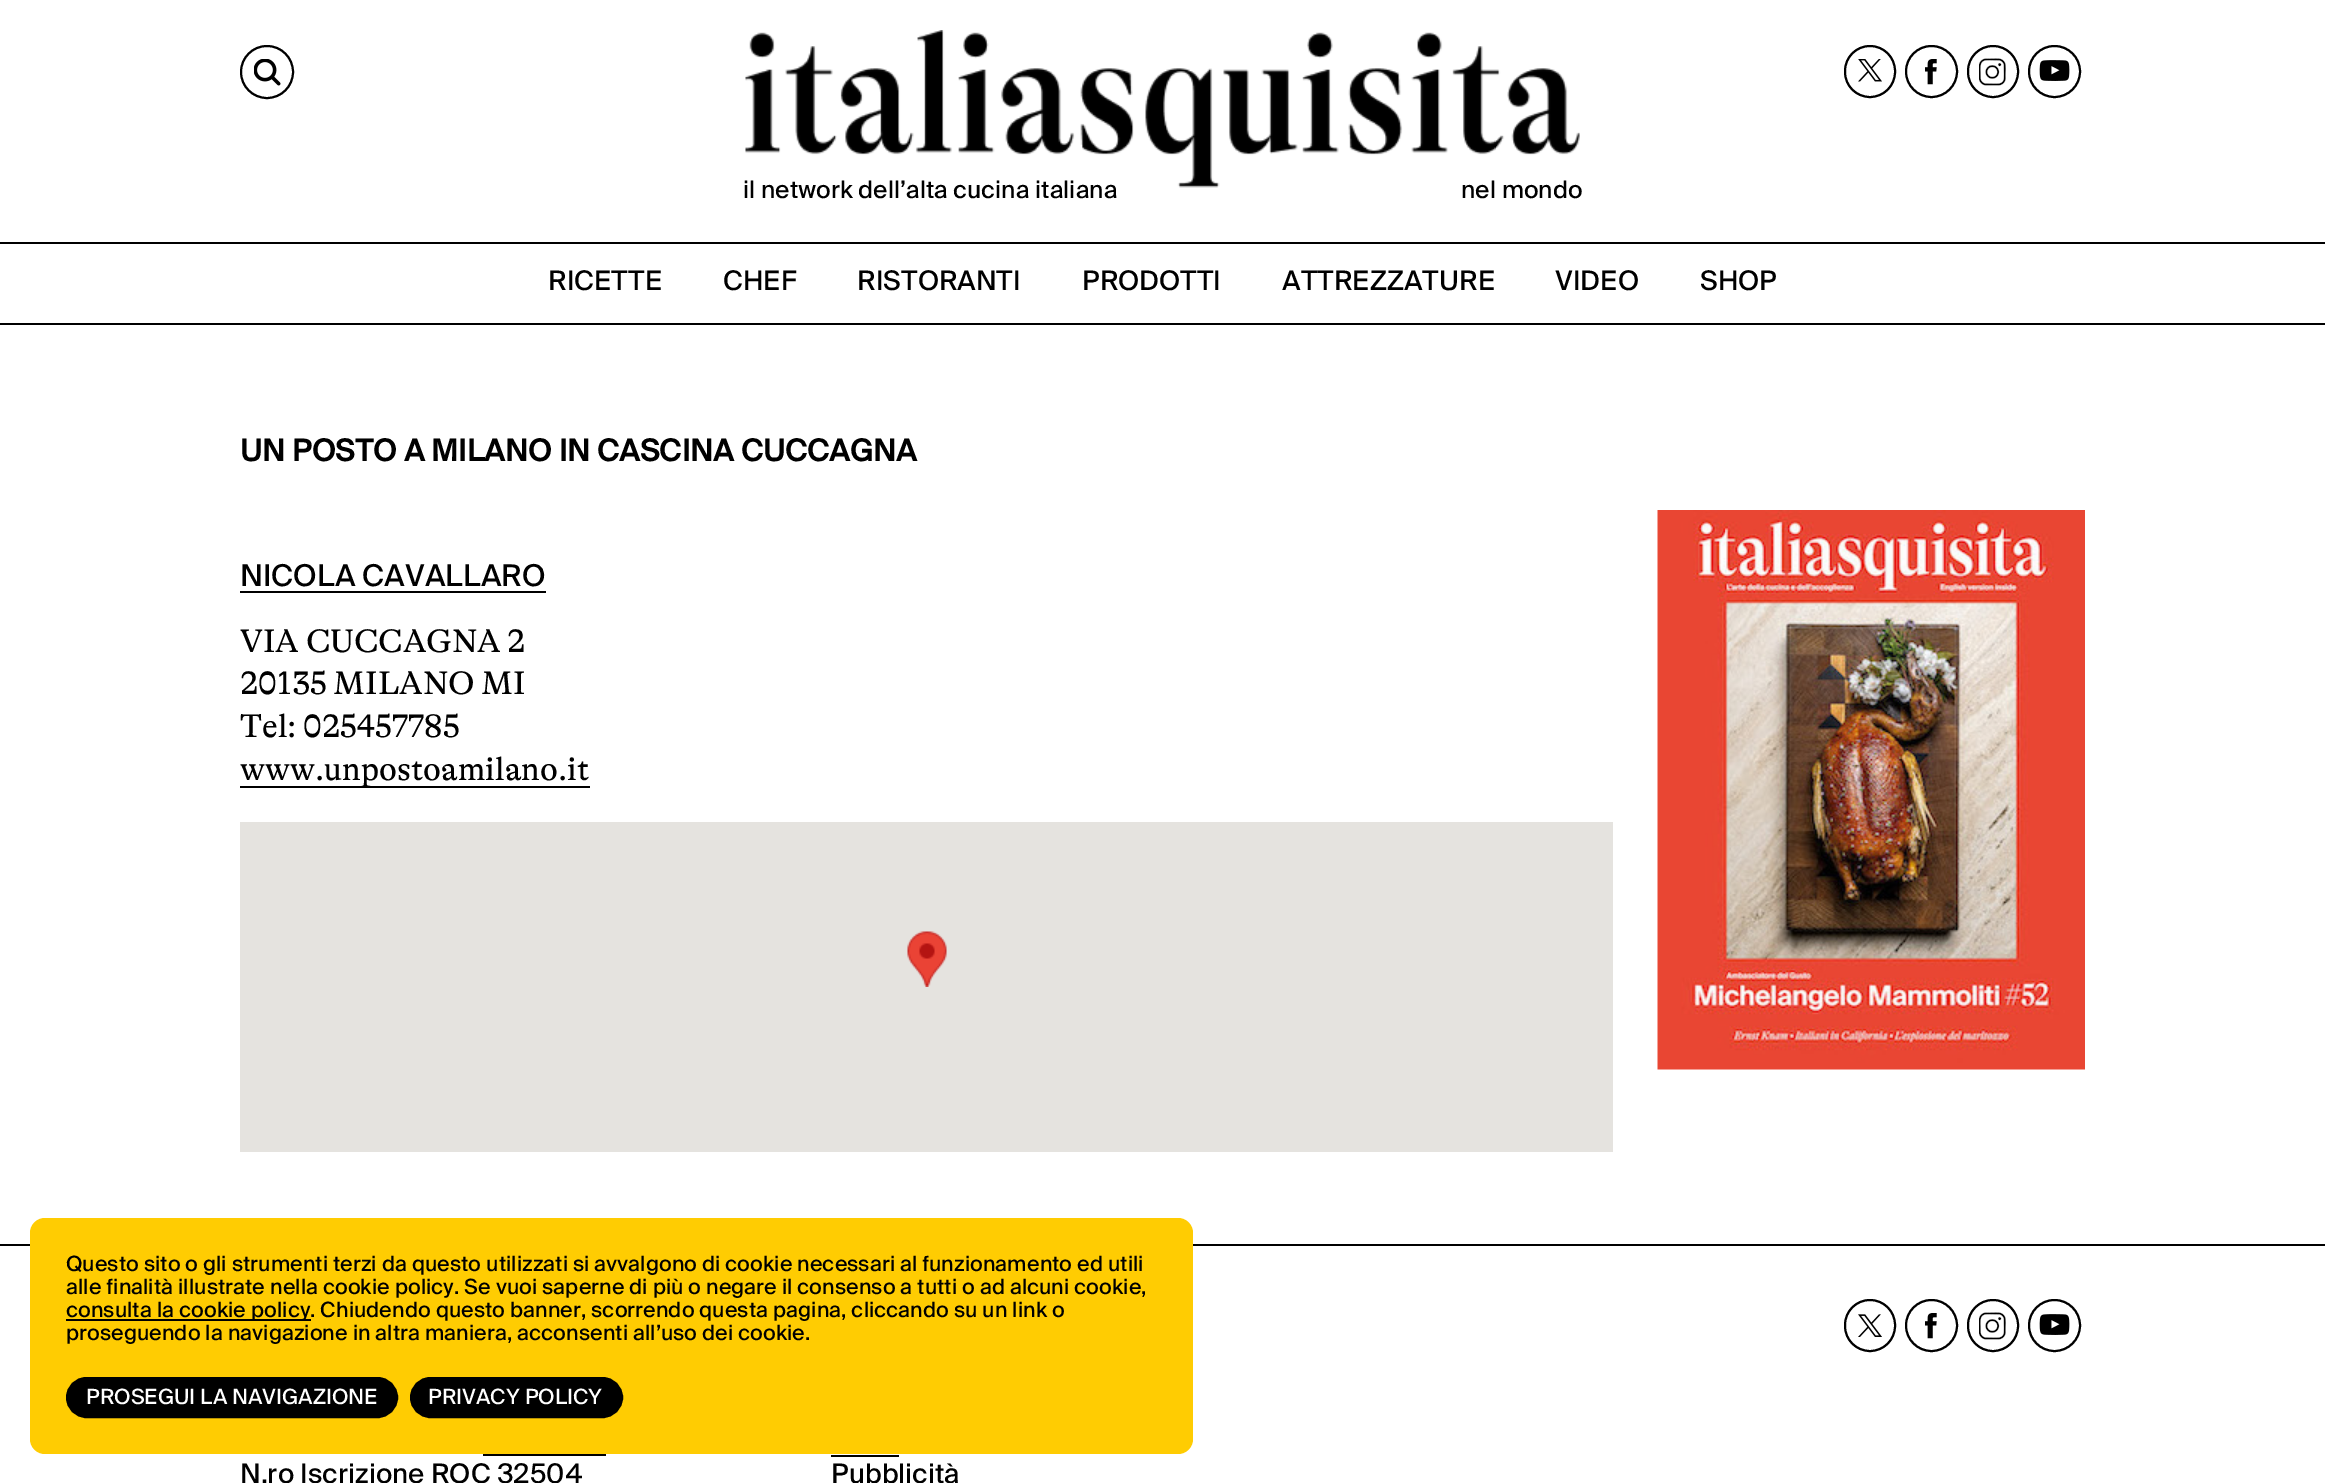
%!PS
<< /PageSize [2325 1483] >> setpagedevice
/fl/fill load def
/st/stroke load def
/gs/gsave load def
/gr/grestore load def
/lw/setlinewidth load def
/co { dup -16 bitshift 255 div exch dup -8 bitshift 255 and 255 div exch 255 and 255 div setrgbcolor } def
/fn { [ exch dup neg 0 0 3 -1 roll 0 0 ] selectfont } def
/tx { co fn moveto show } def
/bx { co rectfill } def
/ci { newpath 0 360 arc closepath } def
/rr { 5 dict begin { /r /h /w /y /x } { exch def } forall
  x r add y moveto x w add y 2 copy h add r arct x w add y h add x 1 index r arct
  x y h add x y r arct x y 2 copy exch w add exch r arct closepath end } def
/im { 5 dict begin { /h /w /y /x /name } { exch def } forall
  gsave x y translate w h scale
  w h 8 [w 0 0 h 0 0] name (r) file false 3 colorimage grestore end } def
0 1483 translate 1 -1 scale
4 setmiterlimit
0 0 2325 1483 16#FFFFFF bx
0 323 2325 2 16#000000 bx
(media/1.raw) 254 59 27 27 im
2 lw
267 72 26 ci st
1845 46 50 51 25 rr st
(media/2.raw) 1858 59 24 23 im
1931.5 71.5 25.5 ci st
(media/3.raw) 1925 59 12 26 im
1968 46 50 51 25 rr st
(media/4.raw) 1979 58 27 28 im
2054.5 71.5 25.5 ci st
(media/5.raw) 2039 60 31 21 im
(media/6.raw) 745 30 835 158 im
0 242 2325 2 16#000000 bx
240 591 306 2 16#000000 bx
240 786 350 2 16#000000 bx
240 822 1373 330 16#E5E3DF bx
(media/7.raw) 907 931 40 56 im
(media/8.raw) 1657 510 428 560 im
0 1244 2325 2 16#000000 bx
1845 1300 50 51 25 rr st
(media/9.raw) 1858 1314 24 23 im
1931.5 1325.5 25.5 ci st
(media/3.raw) 1925 1313 12 26 im
1968 1300 50 51 25 rr st
(media/4.raw) 1979 1312 27 28 im
2054.5 1325.5 25.5 ci st
(media/5.raw) 2039 1314 31 21 im
483 1454 123 2 16#000000 bx
831 1455 68 2 16#000000 bx
16#FFCC02 co
30 1218 1163 236 15 rr fl
66 1319 245 2 16#000000 bx
67 1378 330 39 19.5 rr gs fl gr
st
411 1378 211 39 19.5 rr gs fl gr
st
(il network dell’alta cucina italiana) 743 198 /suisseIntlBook-Regular 24 16#000000 tx
(nel mondo) 1461 198 /suisseIntlBook-Regular 24 16#000000 tx
(RICETTE) 548 290 /suisseIntlBook-Regular 27 16#000000 tx
(CHEF) 723 290 /suisseIntlBook-Regular 27 16#000000 tx
(RISTORANTI) 857 290 /suisseIntlBook-Regular 27 16#000000 tx
(PRODOTTI) 1082 290 /suisseIntlBook-Regular 27 16#000000 tx
(ATTREZZATURE) 1282 290 /suisseIntlBook-Regular 27 16#000000 tx
(VIDEO) 1555 290 /suisseIntlBook-Regular 27 16#000000 tx
(SHOP) 1700 290 /suisseIntlBook-Regular 27 16#000000 tx
(UN POSTO A MILANO IN CASCINA CUCCAGNA) 240 461 /suisseIntlBook-Bold 30 16#000000 tx
(NICOLA CAVALLARO) 240 586 /suisseIntlBook-Regular 30 16#000000 tx
(VIA CUCCAGNA 2) 240 652 /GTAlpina-Regular 33 16#000000 tx
(20135 MILANO MI) 240 694 /GTAlpina-Regular 33 16#000000 tx
(Tel: 025457785) 240 737 /GTAlpina-Regular 33 16#000000 tx
(www.unpostoamilano.it) 240 780 /GTAlpina-Regular 33 16#000000 tx
(N.ro Iscrizione ROC 32504) 240 1483 /suisseIntlBook-Regular 27 16#000000 tx
(Pubblicità) 831 1483 /suisseIntlBook-Regular 27 16#000000 tx
(Questo sito o gli strumenti terzi da questo utilizzati si avvalgono di cookie necessari al funzionamento ed utili) 66 1271 /suisseIntlBook-Regular 21 16#000000 tx
(alle finalità illustrate nella cookie policy. Se vuoi saperne di più o negare il consenso a tutti o ad alcuni cookie,) 66 1294 /suisseIntlBook-Regular 21 16#000000 tx
(consulta la cookie policy. Chiudendo questo banner, scorrendo questa pagina, cliccando su un link o) 66 1317 /suisseIntlBook-Regular 21 16#000000 tx
(proseguendo la navigazione in altra maniera, acconsenti all’uso dei cookie.) 66 1340 /suisseIntlBook-Regular 21 16#000000 tx
(PROSEGUI LA NAVIGAZIONE) 86 1404 /suisseIntlBook-Regular 21 16#FFFFFF tx
(PRIVACY POLICY) 428 1404 /suisseIntlBook-Regular 21 16#FFFFFF tx
showpage
